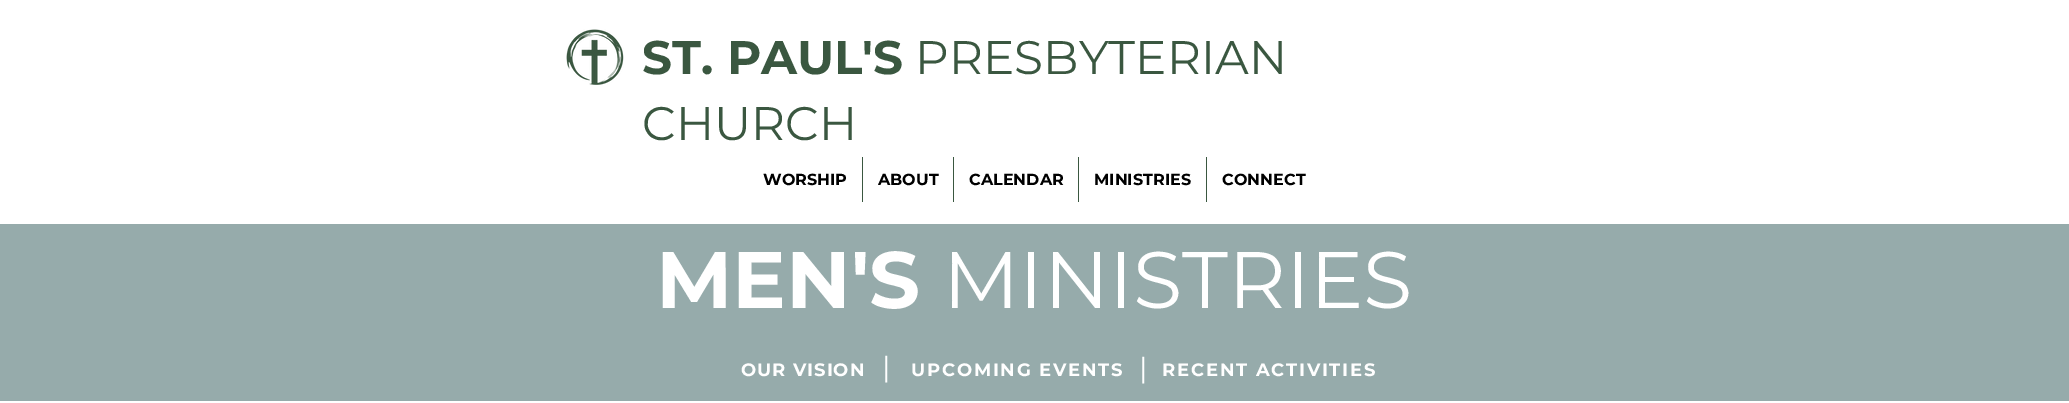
%!PS
<< /PageSize [2069 403] >> setpagedevice
/mt/moveto load def
/co { dup -16 bitshift 255 div exch dup -8 bitshift 255 and 255 div exch 255 and 255 div setrgbcolor } def
/fn { [ exch dup neg 0 0 3 -1 roll 0 0 ] selectfont } def
/tx { co fn moveto show } def
/bx { co rectfill } def
/im { 5 dict begin { /h /w /y /x /name } { exch def } forall
  gsave x y translate w h scale
  w h 8 [w 0 0 h 0 0] name (r) file false 3 colorimage grestore end } def
0 403 translate 1 -1 scale
4 setmiterlimit
0 0 2069 403 16#96ABAB bx
0 0 2069 224 16#FFFFFF bx
(media/1.raw) 566 29 58 56 im
862 157 1 45 16#3A5740 bx
953 157 1 45 16#3A5740 bx
1078 157 1 45 16#3A5740 bx
1206 157 1 45 16#3A5740 bx
0 401 2069 2 16#FFFFFF bx
(ST. PAUL'S) 642 74 /Montserrat-Bold 47 16#3A5740 tx
(PRESBYTERIAN) 915 74 /Montserrat-Regular 47 16#3A5740 tx
(CHURCH) 642 140 /Montserrat-Regular 47 16#3A5740 tx
(WORSHIP) 763 185 /Montserrat-Bold 16 16#000000 tx
(ABOUT) 878 185 /Montserrat-Bold 16 16#000000 tx
(CALENDAR) 969 185 /Montserrat-Bold 16 16#000000 tx
(MINISTRIES) 1094 185 /Montserrat-Bold 16 16#000000 tx
(CONNECT) 1222 185 /Montserrat-Bold 16 16#000000 tx
(MEN'S) 656 308 /Montserrat-Bold 80 16#FFFFFF tx
(MINISTRIES) 943 308 /Montserrat-Regular 80 16#FFFFFF tx
/Montserrat-Bold 18 fn
741 376 mt 1 0 (OUR VISION) ashow
(|) 883 376 /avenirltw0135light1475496-Bold 26 16#FFFFFF tx
/Montserrat-Bold 18 fn
911 376 mt 1.75 0 (UPCOMING EVENTS) ashow
(|) 1140 377 /avenirltw0135light1475496-Bold 26 16#FFFFFF tx
/Montserrat-Bold 18 fn
1162 376 mt 1.75 0 (RECENT ACTIVITIES) ashow
showpage
